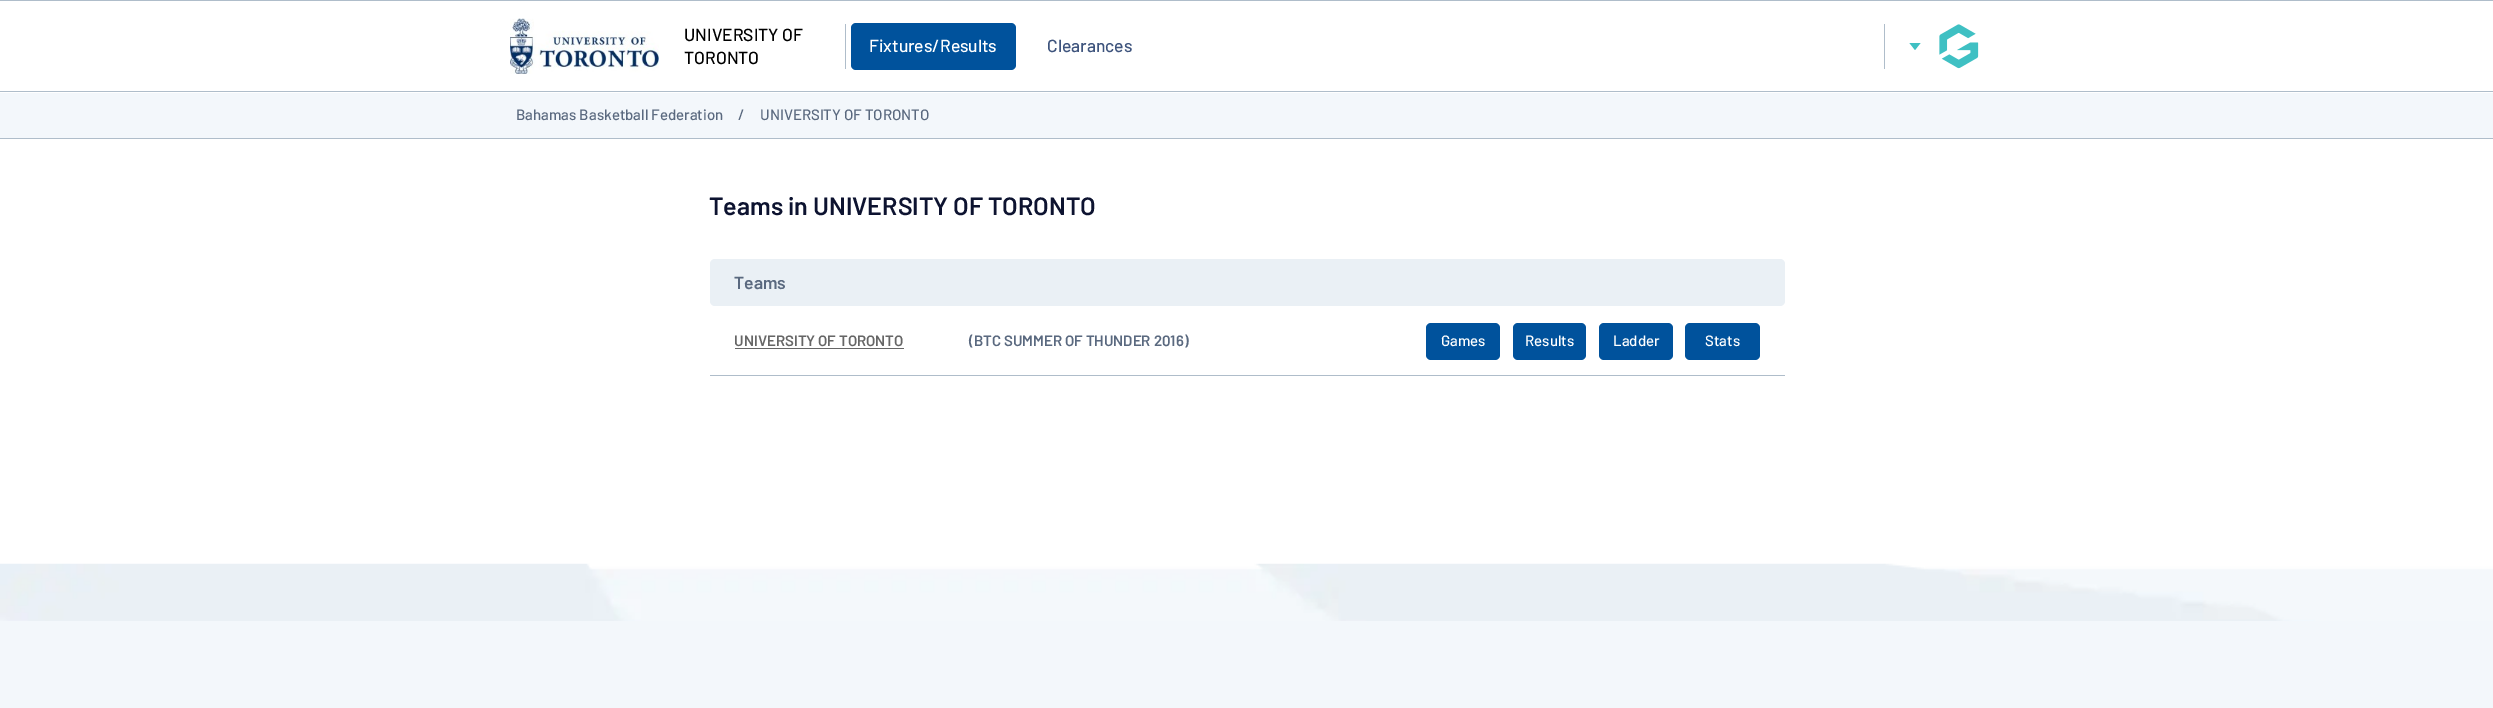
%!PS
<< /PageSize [2493 708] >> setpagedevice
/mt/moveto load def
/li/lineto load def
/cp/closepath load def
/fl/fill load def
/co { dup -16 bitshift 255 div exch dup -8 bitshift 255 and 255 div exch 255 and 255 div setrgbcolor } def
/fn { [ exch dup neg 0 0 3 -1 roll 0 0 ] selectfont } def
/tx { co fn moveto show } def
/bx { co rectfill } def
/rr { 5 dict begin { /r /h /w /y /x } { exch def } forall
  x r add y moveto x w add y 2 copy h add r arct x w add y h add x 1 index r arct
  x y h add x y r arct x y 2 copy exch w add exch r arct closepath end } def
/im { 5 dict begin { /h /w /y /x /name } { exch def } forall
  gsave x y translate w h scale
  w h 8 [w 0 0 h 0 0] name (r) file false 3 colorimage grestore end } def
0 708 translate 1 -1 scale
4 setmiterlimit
0 0 2493 708 16#FFFFFF bx
0 0 2493 1 16#AFBDCA bx
0 91 2493 1 16#AFBDCA bx
(media/1.raw) 510 18 149 56 im
845 24 1 45 16#AFBDCA bx
16#00529C co
851 23 165 47 5 rr fl
1884 24 1 45 16#AFBDCA bx
16#3FC0C3 co
1915 50 mt 1920.5 43 li 1909.5 43 li cp fl
(media/2.raw) 1939 24 40 45 im
0 93 2493 45 16#F3F7FB bx
0 138 2493 1 16#AFBDCA bx
16#EAF0F5 co
710 259 1075 47 5 rr fl
710 375 1075 1 16#AFBDCA bx
735 348 169 1 16#666666 bx
16#00529C co
1426 323 74 37 5 rr fl
1513 323 73 37 5 rr fl
1599 323 74 37 5 rr fl
1685 323 75 37 5 rr fl
(media/3.raw) 0 563 2493 58 im
0 621 2493 87 16#F3F7FB bx
(UNIVERSITY OF) 684 41 /Barlow-Medium 17.5 16#000000 tx
(TORONTO) 684 64 /Barlow-Medium 17.5 16#000000 tx
(Fixtures/Results) 869 52 /Barlow-Medium 17.5 16#FFFFFF tx
(Clearances) 1047 52 /Barlow-Medium 17.5 16#3E547D tx
(Bahamas Basketball Federation) 516 120 /Barlow-Medium 15 16#5A697F tx
(/) 738 120 /Barlow-Medium 15 16#5A697F tx
(UNIVERSITY OF TORONTO) 760 120 /Barlow-Medium 15 16#5A697F tx
(Teams in UNIVERSITY OF TORONTO) 709 215 /Barlow-SemiBold 25 16#0D1330 tx
(Teams) 734 289 /Barlow-SemiBold 17.5 16#5A697F tx
(UNIVERSITY OF TORONTO) 734 346 /Barlow-SemiBold 15 16#666666 tx
(\(BTC SUMMER OF THUNDER 2016\)) 969 346 /Barlow-SemiBold 15 16#5A697F tx
(Games) 1441 346 /Barlow-Medium 15 16#FFFFFF tx
(Results) 1525 346 /Barlow-Medium 15 16#FFFFFF tx
(Ladder) 1613 346 /Barlow-Medium 15 16#FFFFFF tx
(Stats) 1705 346 /Barlow-Medium 15 16#FFFFFF tx
showpage
